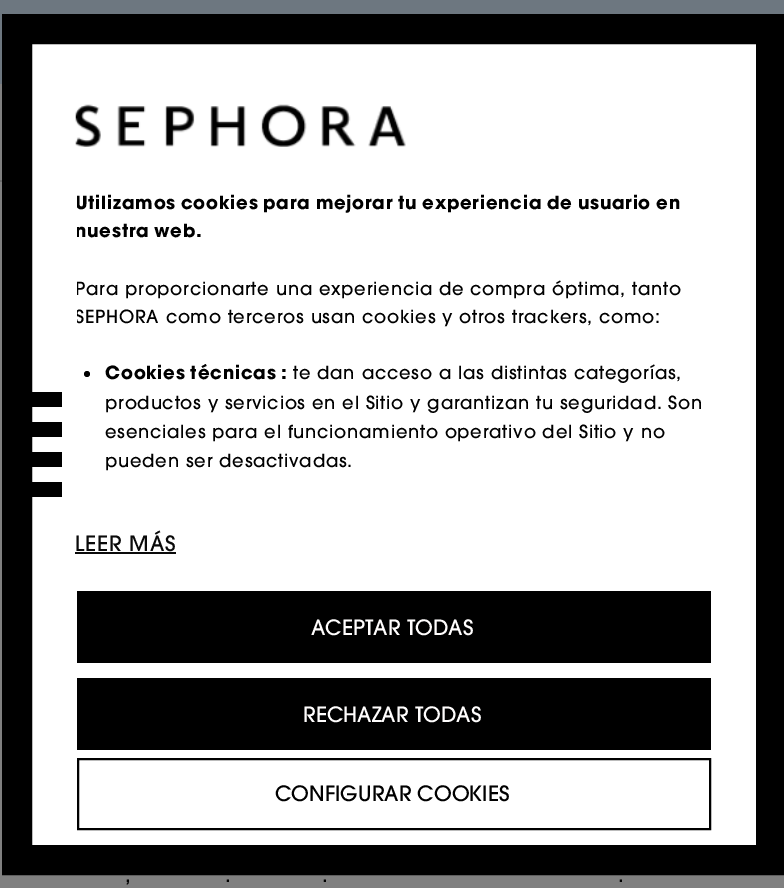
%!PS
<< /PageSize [784 888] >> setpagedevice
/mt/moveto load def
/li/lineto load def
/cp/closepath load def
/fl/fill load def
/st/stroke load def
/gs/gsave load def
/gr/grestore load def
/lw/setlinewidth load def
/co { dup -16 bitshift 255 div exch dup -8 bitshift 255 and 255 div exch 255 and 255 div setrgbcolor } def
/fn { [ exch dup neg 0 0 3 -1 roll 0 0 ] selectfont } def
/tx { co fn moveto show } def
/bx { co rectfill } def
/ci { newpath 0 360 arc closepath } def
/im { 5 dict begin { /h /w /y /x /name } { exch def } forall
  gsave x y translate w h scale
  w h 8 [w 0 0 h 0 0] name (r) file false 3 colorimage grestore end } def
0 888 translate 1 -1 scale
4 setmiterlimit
0 0 784 888 16#808080 bx
0 180 2 2 16#6C6C6C bx
0 0 784 84 16#6D7780 bx
16#FFFFFF co
17 29 mt 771 29 li 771 860 li 17 860 li cp gs fl gr
16#000000 co
30 lw
st
32 392 30 15 16#000000 bx
32 422 30 15 16#000000 bx
32 452 30 15 16#000000 bx
32 482 30 15 16#000000 bx
(media/1.raw) 75 104 331 43 im
87 374 3 ci fl
75 552 101 2 16#0A0A0A bx
77 591 634 72 16#000000 bx
77 678 634 72 16#000000 bx
2 lw
78 759 632 70 rectstroke
gs
77 59 634 450 rectclip
/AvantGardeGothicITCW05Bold-Bold 18 fn
75 209 mt .75 0 (Utilizamos cookies para mejorar tu experiencia de usuario en) ashow
75 237 mt .75 0 (nuestra web.) ashow
/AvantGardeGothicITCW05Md-Medium 18 fn
75 295 mt .75 0 (Para proporcionarte una experiencia de compra óptima, tanto) ashow
75 323 mt .75 0 (SEPHORA como terceros usan cookies y otros trackers, como:) ashow
gr
/AvantGardeGothicITCW05Bold-Bold 18 fn
105 379 mt .75 0 (Cookies técnicas :) ashow
/AvantGardeGothicITCW05Md-Medium 18 fn
293 379 mt .75 0 (te dan acceso a las distintas categorías,) ashow
105 409 mt .75 0 (productos y servicios en el Sitio y garantizan tu seguridad. Son) ashow
105 438 mt .75 0 (esenciales para el funcionamiento operativo del Sitio y no) ashow
105 467 mt .75 0 (pueden ser desactivadas.) ashow
/AvantGardeGothicITCW05Md-Medium 21 fn
16#0A0A0A co
75 551 mt .75 0 (LEER MÁS) ashow
(ACEPTAR TODAS) 311 635 /AvantGardeGothicITCW05Md-Medium 21 16#FFFDFD tx
(RECHAZAR TODAS) 303 722 /AvantGardeGothicITCW05Md-Medium 21 16#FFFDFD tx
(CONFIGURAR COOKIES) 275 801 /AvantGardeGothicITCW05Md-Medium 21 16#000000 tx
125 882 mt .75 0 (,) ashow
225 882 mt .75 0 (.) ashow
322 882 mt .75 0 (.) ashow
618 882 mt .75 0 (.) ashow
showpage
